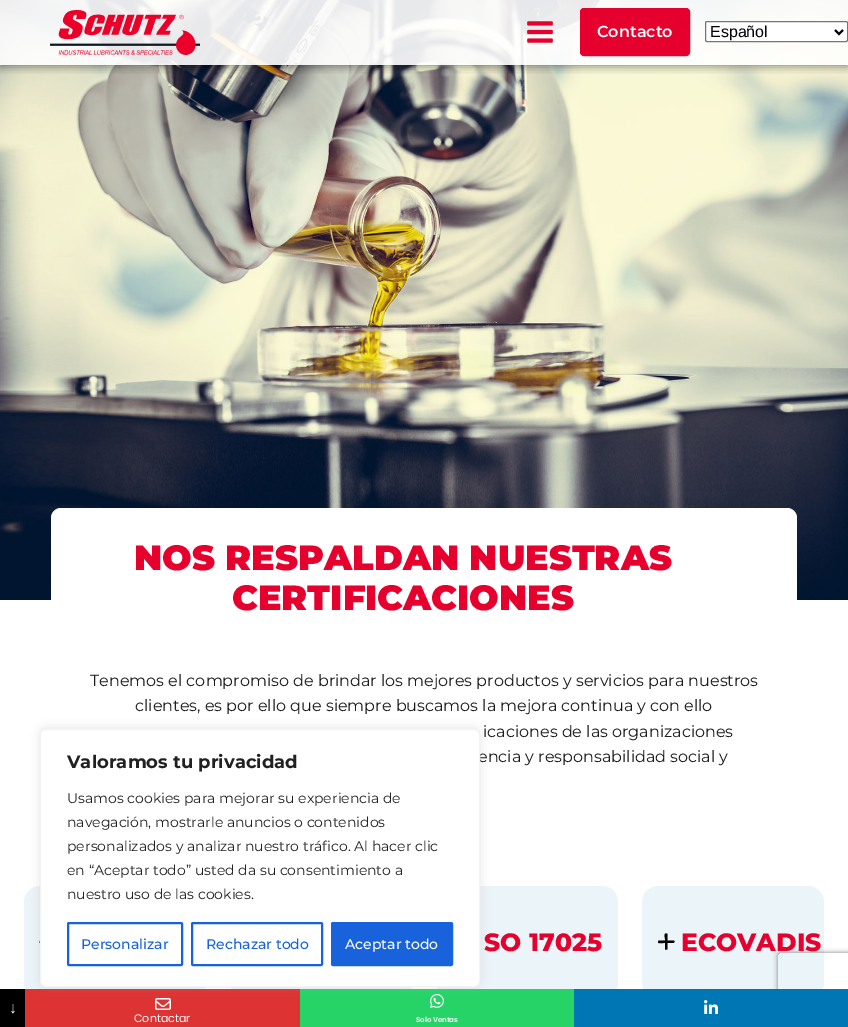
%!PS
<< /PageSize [848 1027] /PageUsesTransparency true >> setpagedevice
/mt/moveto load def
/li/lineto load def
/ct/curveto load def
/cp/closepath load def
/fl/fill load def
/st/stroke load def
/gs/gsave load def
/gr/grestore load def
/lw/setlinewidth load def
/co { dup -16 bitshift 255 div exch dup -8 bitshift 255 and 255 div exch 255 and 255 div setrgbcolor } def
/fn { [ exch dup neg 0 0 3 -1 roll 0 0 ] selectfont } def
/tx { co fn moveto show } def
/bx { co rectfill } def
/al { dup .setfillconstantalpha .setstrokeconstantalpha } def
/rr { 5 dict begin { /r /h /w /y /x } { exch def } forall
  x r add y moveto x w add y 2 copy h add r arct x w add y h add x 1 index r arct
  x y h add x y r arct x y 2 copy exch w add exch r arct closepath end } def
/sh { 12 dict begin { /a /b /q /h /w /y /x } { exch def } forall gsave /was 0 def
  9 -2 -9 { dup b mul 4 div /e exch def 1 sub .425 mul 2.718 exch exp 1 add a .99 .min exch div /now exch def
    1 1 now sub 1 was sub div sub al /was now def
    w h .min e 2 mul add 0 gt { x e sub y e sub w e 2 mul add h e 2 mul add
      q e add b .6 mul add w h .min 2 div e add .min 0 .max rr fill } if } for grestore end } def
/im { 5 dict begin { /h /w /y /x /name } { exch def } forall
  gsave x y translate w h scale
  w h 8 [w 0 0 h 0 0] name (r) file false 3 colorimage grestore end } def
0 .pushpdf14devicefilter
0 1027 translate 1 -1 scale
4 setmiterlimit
0 0 848 1027 16#FFFFFF bx
(media/3.raw) 0 0 848 600 im
gs
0 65 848 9 rectclip
16#000000 co
0 2 848 65 0 4.5 .4 sh
gr
0.9 al
0 0 848 65 16#FFFFFF bx
1 al
(media/1.raw) 50 10 150 45 im
(media/2.raw) 527 21 26 22 im
16#E6002D co
580.5 8.5 109 47 3.5 rr gs fl gr
st
16#FFFFFF co
705.5 21.5 142 20 1.5 rr gs fl gr
16#767676 co
st
16#000000 co
2 lw
835 30 mt 839 34 li 843 30 li st
16#FFFFFF co
51 508 746 288 10 rr fl
16#EAF4F9 co
24 886 182 112 16 rr fl
16#000000 co
55 943 mt 45 943 li 44.5 943 39.5 943.5 39.5 942.5 ct 40 940.5 li 55.5 940.5 li 56 940.5 56 943 55 943 ct cp fl
16#EAF4F9 co
230 886 182 112 16 rr fl
436 886 182 112 16 rr fl
642 886 182 112 16 rr fl
16#000000 co
665 949 mt 665 939 li 665 938.5 664 933.5 665.5 933.5 ct 667.5 933.5 li 667.5 949 li 667 950 665 950 665 949 ct cp fl
673.5 943 mt 663.5 943 li 663 943 658 943.5 658 942.5 ct 658.5 940.5 li 674 940.5 li 674.5 940.5 674.5 943 673.5 943 ct cp fl
0 989 25 38 16#000000 bx
25 989 275 38 16#DD3333 bx
(media/5.raw) 155 998 16 12 im
300 989 274 38 16#26D367 bx
(media/6.raw) 430 994 14 14 im
16#ACABAB co
40 728 440 258 6 5 .3 sh
gs
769 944 mt 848 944 li 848 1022 li 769 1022 li cp 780 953 mt 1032 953 li 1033 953 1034 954 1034 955 ct 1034 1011 li 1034 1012 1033 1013 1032 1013 ct 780 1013 li 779 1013 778 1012 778 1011 ct 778 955 li 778 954 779 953 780 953 ct cp eoclip newpath
16#808080 co
778 953 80 60 2 2.5 1 sh
gr
574 989 274 38 16#0077B5 bx
(media/4.raw) 704 1000 14 14 im
(Contacto) 597 37 /Montserrat-SemiBold 16 16#FFFFFF tx
(Español) 710 37 /LiberationSans-Regular 16 16#000000 tx
(NOS RESPALDAN NUESTRAS) 134 570 /Montserrat-Black 35 16#E6002D tx
(CERTIFICACIONES) 232 610 /Montserrat-Black 35 16#E6002D tx
(Tenemos el compromiso de brindar los mejores productos y servicios para nuestros) 90 686 /Montserrat-Regular 16 16#1B1B1C tx
(clientes, es por ello que siempre buscamos la mejora continua y con ello) 135 711 /Montserrat-Regular 16 16#1B1B1C tx
(icaciones de las organizaciones) 483 737 /Montserrat-Regular 16 16#1B1B1C tx
(encia y responsabilidad social y) 478 762 /Montserrat-Regular 16 16#1B1B1C tx
(SO 17025) 484 951 /Montserrat-ExtraBold 25 16#E6002D tx
(ECOVADIS) 681 951 /Montserrat-ExtraBold 25 16#E6002D tx
16#FFFFFF co
40.5 729.5 439 257 5.5 rr gs fl gr
16#F4F4F4 co
1 lw
st
(Valoramos tu privacidad) 67 768 /Montserrat-Bold 18 16#212121 tx
(Usamos cookies para mejorar su experiencia de) 67 803 /Montserrat-Regular 14 16#212121 tx
(navegación, mostrarle anuncios o contenidos) 67 827 /Montserrat-Regular 14 16#212121 tx
(personalizados y analizar nuestro tráfico. Al hacer clic) 67 851 /Montserrat-Regular 14 16#212121 tx
(en “Aceptar todo” usted da su consentimiento a) 67 875 /Montserrat-Regular 14 16#212121 tx
(nuestro uso de las cookies.) 67 899 /Montserrat-Regular 14 16#212121 tx
16#1863DC co
2 lw
68 923 114 42 1 rr st
(Personalizar) 81 949 /Montserrat-Medium 14 16#1863DC tx
192 923 130 42 1 rr st
(Rechazar todo) 206 949 /Montserrat-Medium 14 16#1863DC tx
332 923 120 42 1 rr gs fl gr
st
(Aceptar todo) 345 949 /Montserrat-Medium 14 16#FFFFFF tx
(↓) 9 1013 /LiberationSerif-Regular 16 16#FFFFFF tx
(Contactar) 134 1022 /Poppins-Regular 11 16#FFFFFF tx
(Solo Ventas) 416 1022 /Poppins-SemiBold 7 16#FFFFFF tx
.poppdf14devicefilter showpage
